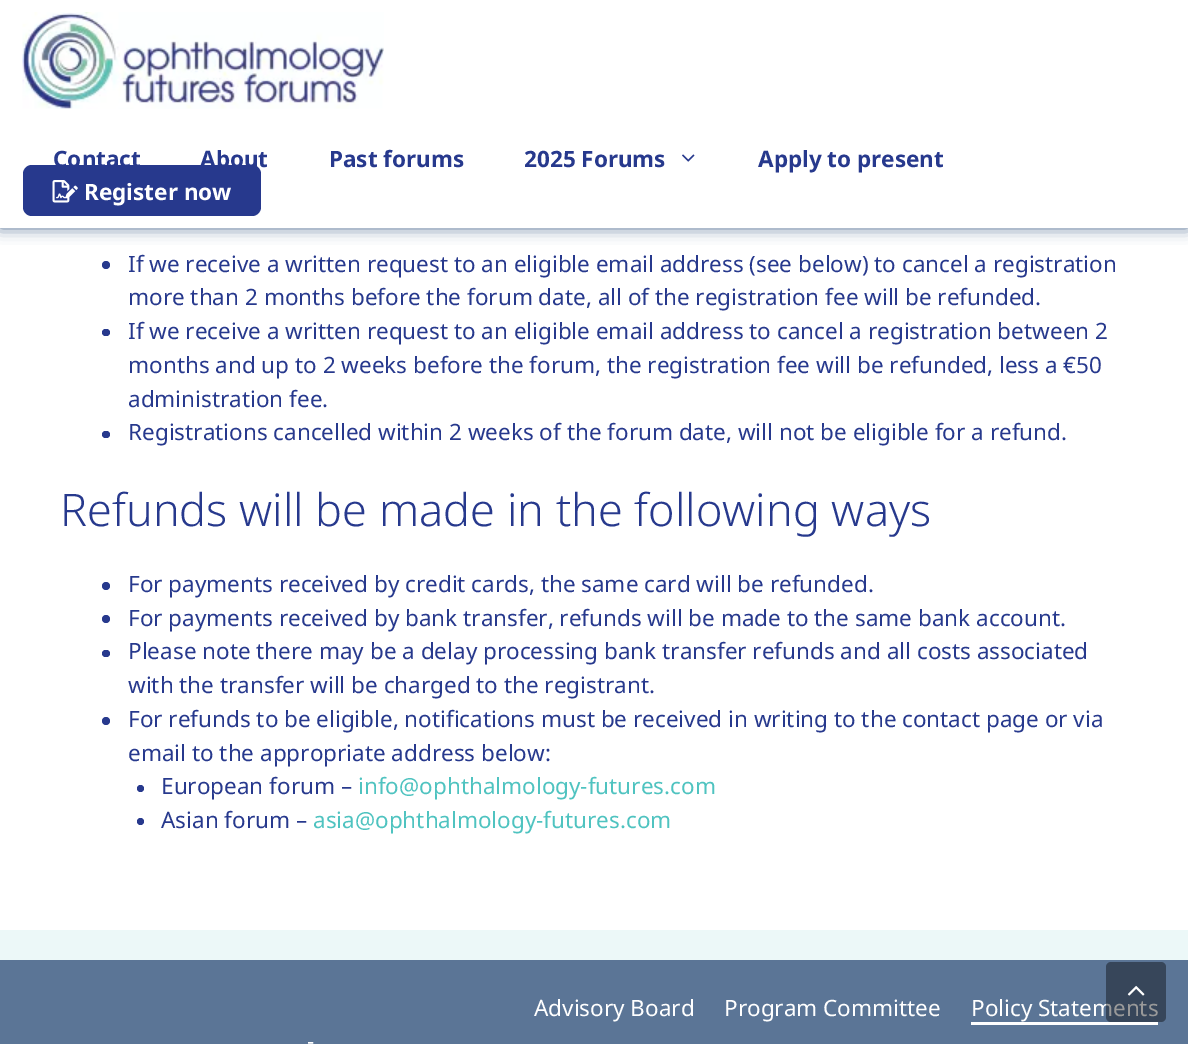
%!PS
<< /PageSize [1188 1044] /PageUsesTransparency true >> setpagedevice
/fl/fill load def
/co { dup -16 bitshift 255 div exch dup -8 bitshift 255 and 255 div exch 255 and 255 div setrgbcolor } def
/fn { [ exch dup neg 0 0 3 -1 roll 0 0 ] selectfont } def
/tx { co fn moveto show } def
/bx { co rectfill } def
/al { dup .setfillconstantalpha .setstrokeconstantalpha } def
/ci { newpath 0 360 arc closepath } def
/rr { 5 dict begin { /r /h /w /y /x } { exch def } forall
  x r add y moveto x w add y 2 copy h add r arct x w add y h add x 1 index r arct
  x y h add x y r arct x y 2 copy exch w add exch r arct closepath end } def
/sh { 12 dict begin { /a /b /q /h /w /y /x } { exch def } forall gsave /was 0 def
  9 -2 -9 { dup b mul 4 div /e exch def 1 sub .425 mul 2.718 exch exp 1 add a .99 .min exch div /now exch def
    1 1 now sub 1 was sub div sub al /was now def
    w h .min e 2 mul add 0 gt { x e sub y e sub w e 2 mul add h e 2 mul add
      q e add b .6 mul add w h .min 2 div e add .min 0 .max rr fill } if } for grestore end } def
/im { 5 dict begin { /h /w /y /x /name } { exch def } forall
  gsave x y translate w h scale
  w h 8 [w 0 0 h 0 0] name (r) file false 3 colorimage grestore end } def
0 .pushpdf14devicefilter
0 1044 translate 1 -1 scale
4 setmiterlimit
0 0 1188 1044 16#ECF8F8 bx
0 228 1188 702 16#FFFFFF bx
16#5B7596 co
0 0 1188 228 0 7.5 1 sh
0 0 1188 228 16#FFFFFF bx
(media/1.raw) 22 12 362 97 im
(media/2.raw) 682 154 13 8 im
16#27398D co
23 165 238 51 9 rr fl
(media/3.raw) 52 180 26 23 im
106 265 4 ci fl
102 329 8 7 3.5 rr fl
102 431 8 7 3.5 rr fl
106 586 4 ci fl
106 619 4 ci fl
102 650 8 7 3.5 rr fl
106 721 4 ci fl
140.5 788.5 3.5 ci fl
140.5 821.5 3.5 ci fl
0 960 1188 84 16#5B7596 bx
971 1022 187 3 16#FFFFFF bx
(Contact) 53 167 /NotoSans-Bold 22.5 16#27398D tx
(About) 200 167 /NotoSans-Bold 22.5 16#27398D tx
(Past forums) 329 167 /NotoSans-Bold 22.5 16#27398D tx
(2025 Forums) 524 167 /NotoSans-Bold 22.5 16#27398D tx
(Apply to present) 758 167 /NotoSans-Bold 22.5 16#27398D tx
(Register now) 84 200 /NotoSans-Bold 22.5 16#FFFFFF tx
(If we receive a written request to an eligible email address \(see below\) to cancel a registration) 128 272 /NotoSans-Regular 22.5 16#27398D tx
(more than 2 months before the forum date, all of the registration fee will be refunded.) 128 305 /NotoSans-Regular 22.5 16#27398D tx
(If we receive a written request to an eligible email address to cancel a registration between 2) 128 339 /NotoSans-Regular 22.5 16#27398D tx
(months and up to 2 weeks before the forum, the registration fee will be refunded, less a €50) 128 373 /NotoSans-Regular 22.5 16#27398D tx
(administration fee.) 128 407 /NotoSans-Regular 22.5 16#27398D tx
(Registrations cancelled within 2 weeks of the forum date, will not be eligible for a refund.) 128 440 /NotoSans-Regular 22.5 16#27398D tx
(Refunds will be made in the following ways) 60 526 /NotoSans-Light 45 16#27398D tx
(For payments received by credit cards, the same card will be refunded.) 128 592 /NotoSans-Regular 22.5 16#27398D tx
(For payments received by bank transfer, refunds will be made to the same bank account.) 128 626 /NotoSans-Regular 22.5 16#27398D tx
(Please note there may be a delay processing bank transfer refunds and all costs associated) 128 659 /NotoSans-Regular 22.5 16#27398D tx
(with the transfer will be charged to the registrant.) 128 693 /NotoSans-Regular 22.5 16#27398D tx
(For refunds to be eligible, notifications must be received in writing to the contact page or via) 128 727 /NotoSans-Regular 22.5 16#27398D tx
(email to the appropriate address below:) 128 761 /NotoSans-Regular 22.5 16#27398D tx
(European forum –) 161 794 /NotoSans-Regular 22.5 16#27398D tx
(info@ophthalmology-futures.com) 358 794 /NotoSans-Regular 22.5 16#4FC3C0 tx
(Asian forum –) 161 828 /NotoSans-Regular 22.5 16#27398D tx
(asia@ophthalmology-futures.com) 313 828 /NotoSans-Regular 22.5 16#4FC3C0 tx
(Advisory Board) 534 1016 /NotoSans-Regular 22.5 16#FFFFFF tx
(Program Committee) 724 1016 /NotoSans-Regular 22.5 16#FFFFFF tx
(Policy Statements) 971 1016 /NotoSans-Regular 22.5 16#FFFFFF tx
0.4 al
16#000000 co
1106 962 60 60 5 rr fl
1 al
(media/4.raw) 1127 985 18 11 im
(-) 307 1049 /NotoSans-Regular 22.5 16#FFFFFF tx
.poppdf14devicefilter showpage
